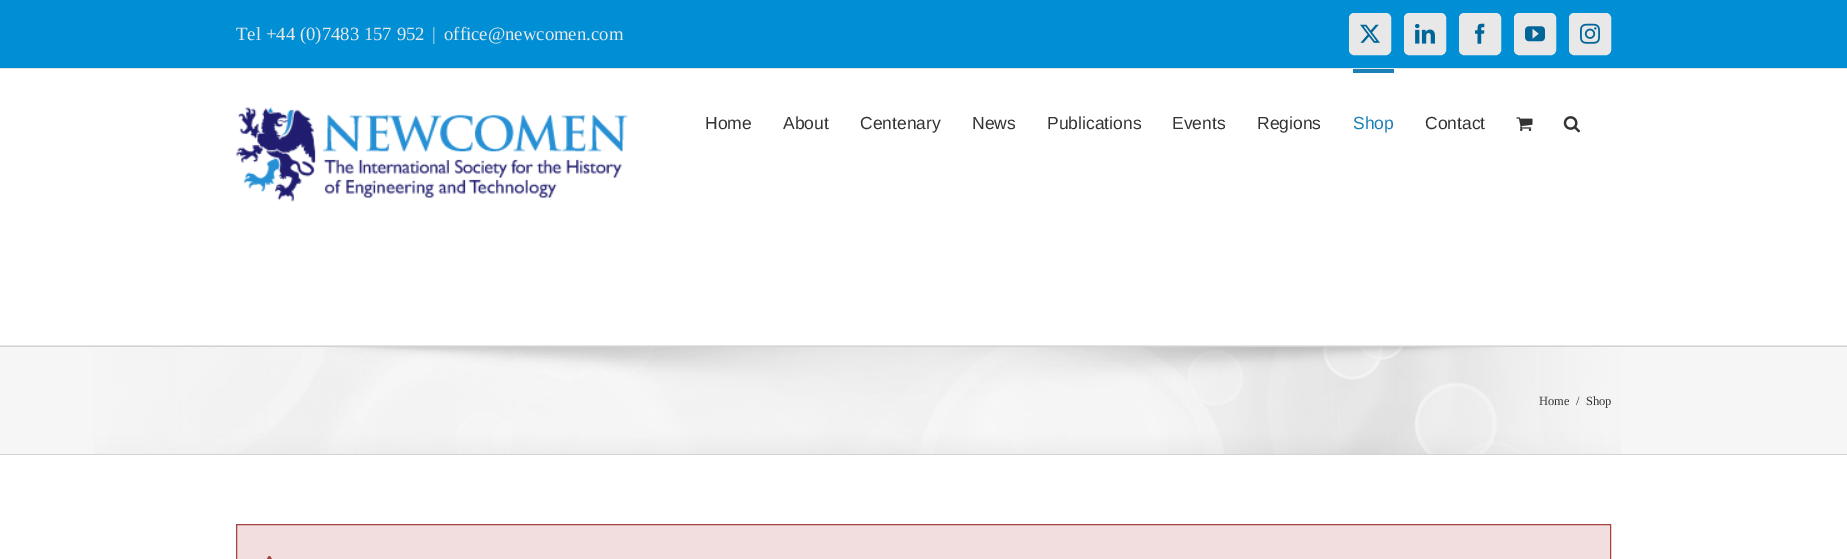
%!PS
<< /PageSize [1847 559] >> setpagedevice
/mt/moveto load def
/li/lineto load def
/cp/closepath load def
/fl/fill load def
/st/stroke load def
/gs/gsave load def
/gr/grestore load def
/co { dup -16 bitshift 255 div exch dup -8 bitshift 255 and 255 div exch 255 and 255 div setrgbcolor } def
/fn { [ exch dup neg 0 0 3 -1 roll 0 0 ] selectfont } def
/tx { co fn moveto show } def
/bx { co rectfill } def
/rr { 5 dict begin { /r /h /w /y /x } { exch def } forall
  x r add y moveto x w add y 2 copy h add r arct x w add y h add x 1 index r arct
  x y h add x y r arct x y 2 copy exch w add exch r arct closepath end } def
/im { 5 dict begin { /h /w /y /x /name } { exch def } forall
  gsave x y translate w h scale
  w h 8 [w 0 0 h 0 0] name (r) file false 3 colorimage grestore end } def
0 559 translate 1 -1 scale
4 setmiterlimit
0 0 1847 559 16#FFFFFF bx
0 0 1847 68 16#008FD5 bx
0 68 1847 1 16#E5E5E5 bx
16#E8E8E8 co
1349.5 13.5 41 41 4.5 rr gs fl gr
st
(media/1.raw) 1360 24 20 19 im
1404.5 13.5 41 41 4.5 rr gs fl gr
st
(media/2.raw) 1415 23 20 21 im
1459.5 13.5 41 41 4.5 rr gs fl gr
st
(media/3.raw) 1475 23 10 21 im
1514.5 13.5 41 41 4.5 rr gs fl gr
st
(media/4.raw) 1525 26 20 16 im
1569.5 13.5 41 41 4.5 rr gs fl gr
st
(media/5.raw) 1580 23 20 21 im
0 345 1847 1 16#E5E5E5 bx
(media/6.raw) 236 107 392 95 im
1353 69 41 4 16#1A80B6 bx
(media/7.raw) 1516 117 17 15 im
(media/8.raw) 1563 116 17 17 im
0 347 1847 107 16#F6F6F6 bx
(media/9.raw) 93 347 1528 107 im
0 346 1847 1 16#D2D3D4 bx
0 454 1847 1 16#D2D3D4 bx
16#F2DEDE co
236.5 524.5 mt 1610.5 524.5 li 1610.5 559.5 li 236.5 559.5 li cp gs fl gr
16#A64242 co
st
(media/10.raw) 266 556 6 3 im
(Tel +44 \(0\)7483 157 952) 236 40 /LiberationSerif-Regular 18.75 16#E8E8E8 tx
(|) 432 40 /LiberationSerif-Regular 18.75 16#E8E8E8 tx
(office@newcomen.com) 444 40 /LiberationSerif-Regular 18.75 16#E8E8E8 tx
(Home) 705 129 /LiberationSans-Regular 17.5 16#333333 tx
(About) 783 129 /LiberationSans-Regular 17.5 16#333333 tx
(Centenary) 860 129 /LiberationSans-Regular 17.5 16#333333 tx
(News) 972 129 /LiberationSans-Regular 17.5 16#333333 tx
(Publications) 1047 129 /LiberationSans-Regular 17.5 16#333333 tx
(Events) 1172 129 /LiberationSans-Regular 17.5 16#333333 tx
(Regions) 1257 129 /LiberationSans-Regular 17.5 16#333333 tx
(Shop) 1353 129 /LiberationSans-Regular 17.5 16#1A80B6 tx
(Contact) 1425 129 /LiberationSans-Regular 17.5 16#333333 tx
(Home) 1539 405 /LiberationSerif-Regular 12.5 16#333333 tx
(/) 1576 405 /LiberationSerif-Regular 12.5 16#333333 tx
(Shop) 1586 405 /LiberationSerif-Regular 12.5 16#333333 tx
showpage
